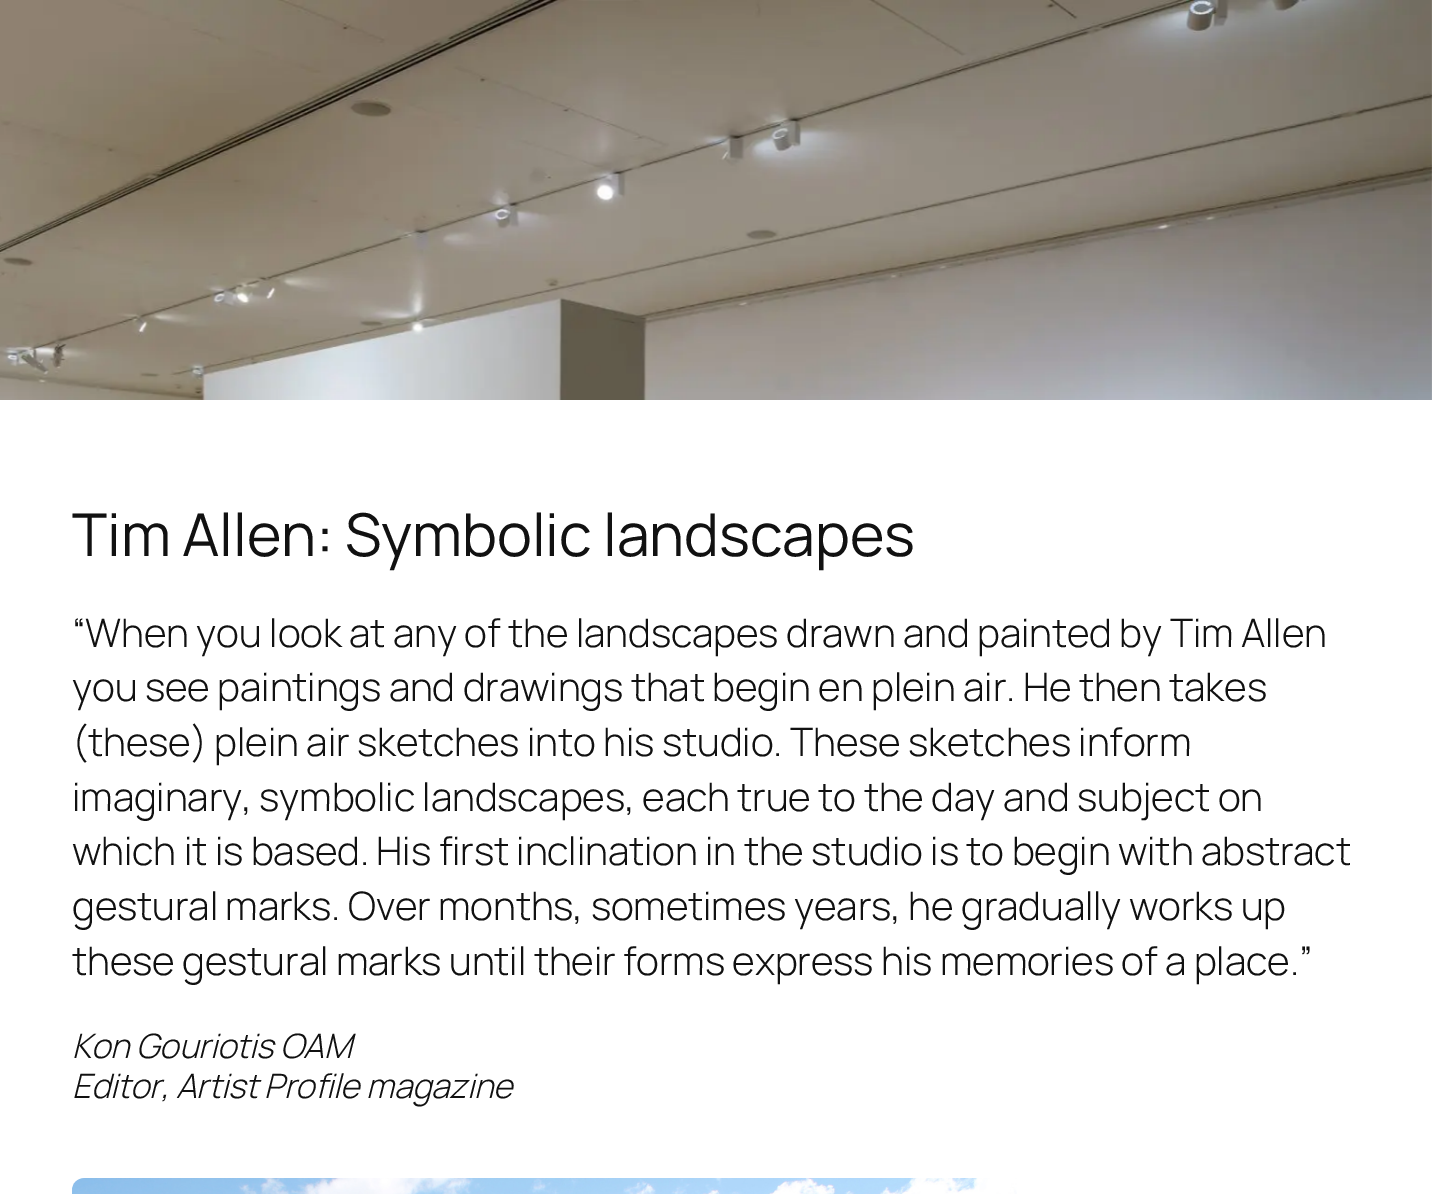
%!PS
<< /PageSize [1432 1194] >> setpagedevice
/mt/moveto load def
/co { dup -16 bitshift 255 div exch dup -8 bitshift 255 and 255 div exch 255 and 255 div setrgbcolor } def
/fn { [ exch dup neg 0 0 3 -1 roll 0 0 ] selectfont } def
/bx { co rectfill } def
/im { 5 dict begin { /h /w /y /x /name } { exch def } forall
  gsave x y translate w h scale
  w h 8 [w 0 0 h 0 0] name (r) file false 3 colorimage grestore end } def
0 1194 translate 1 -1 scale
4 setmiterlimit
0 0 1432 1194 16#FFFFFF bx
(media/1.raw) 0 0 1432 400 im
(media/2.raw) 72 1178 945 16 im
/Manrope-Regular 59.1 fn
16#111111 co
72 556 mt -.2 0 (Tim Allen: Symbolic landscapes) ashow
/Manrope-Light 39.1 fn
72 647 mt -.2 0 (“When you look at any of the landscapes drawn and painted by Tim Allen) ashow
72 701 mt -.2 0 (you see paintings and drawings that begin en plein air. He then takes) ashow
72 756 mt -.2 0 (\(these\) plein air sketches into his studio. These sketches inform) ashow
72 811 mt -.2 0 (imaginary, symbolic landscapes, each true to the day and subject on) ashow
72 865 mt -.2 0 (which it is based. His first inclination in the studio is to begin with abstract) ashow
72 920 mt -.2 0 (gestural marks. Over months, sometimes years, he gradually works up) ashow
72 975 mt -.2 0 (these gestural marks until their forms express his memories of a place.”) ashow
/Manrope-LightItalic 33.5 fn
72 1058 mt -.2 0 (Kon Gouriotis OAM) ashow
72 1098 mt -.2 0 (Editor, Artist Profile magazine) ashow
showpage
